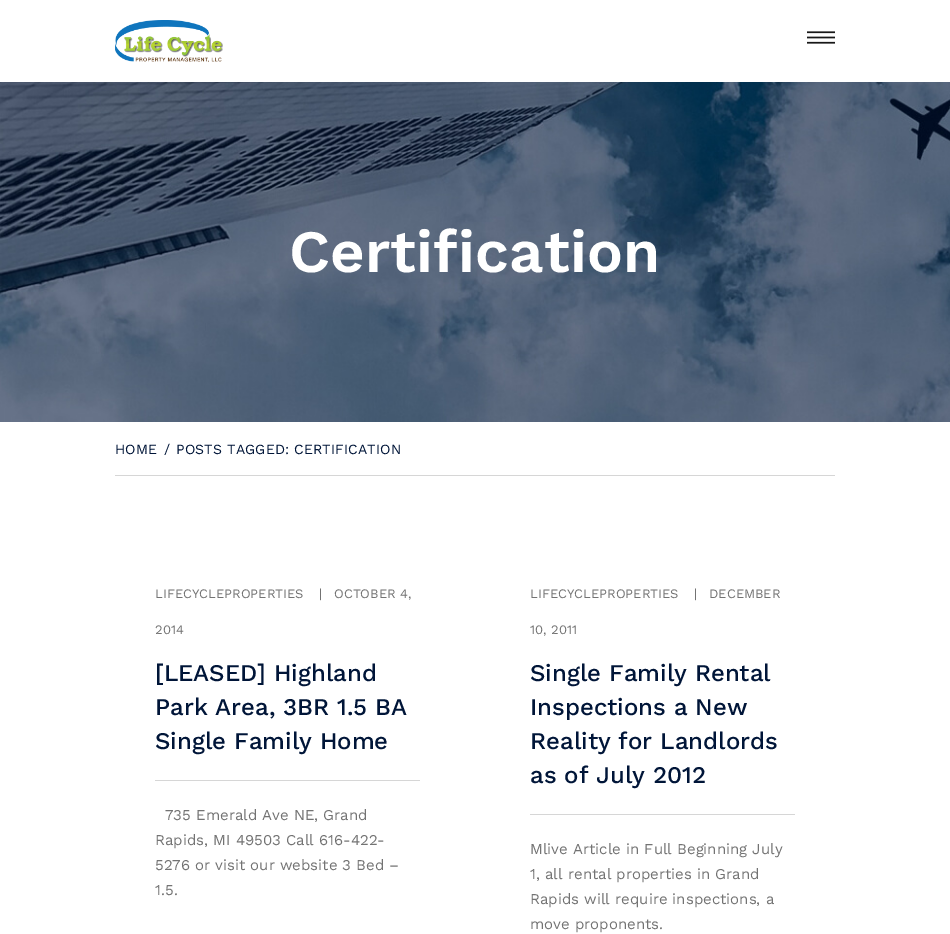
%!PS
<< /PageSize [950 934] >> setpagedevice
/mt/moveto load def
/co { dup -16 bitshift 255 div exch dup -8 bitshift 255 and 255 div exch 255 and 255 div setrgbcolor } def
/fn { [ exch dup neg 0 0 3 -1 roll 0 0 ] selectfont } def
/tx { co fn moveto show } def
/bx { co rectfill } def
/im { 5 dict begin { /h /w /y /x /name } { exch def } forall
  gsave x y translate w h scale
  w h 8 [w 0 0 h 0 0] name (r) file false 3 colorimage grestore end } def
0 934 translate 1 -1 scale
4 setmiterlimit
0 0 950 934 16#FFFFFF bx
(media/1.raw) 115 20 108 42 im
(media/2.raw) 807 31 28 13 im
(media/3.raw) 0 82 950 340 im
115 475 720 1 16#D6D6D6 bx
155 780 265 1 16#D6D6D6 bx
530 814 265 1 16#D6D6D6 bx
/WorkSans-SemiBold 60 fn
16#FFFFFF co
289 272 mt .15 0 (Certification) ashow
/WorkSans-Regular 14 fn
16#001538 co
115 454 mt .15 0 (HOME) ashow
164 454 mt .15 0 (/) ashow
176 454 mt .15 0 (POSTS TAGGED: CERTIFICATION) ashow
(LIFECYCLEPROPERTIES) 155 598 /WorkSans-Regular 13 16#737373 tx
(|) 319 598 /WorkSans-Regular 13 16#737373 tx
(OCTOBER 4,) 334 598 /WorkSans-Regular 13 16#737373 tx
(2014) 155 634 /WorkSans-Regular 13 16#737373 tx
([LEASED] Highland) 155 681 /WorkSans-Medium 24 16#001538 tx
(Park Area, 3BR 1.5 BA) 155 715 /WorkSans-Medium 24 16#001538 tx
(Single Family Home) 155 749 /WorkSans-Medium 24 16#001538 tx
(735 Emerald Ave NE, Grand) 165 820 /WorkSans-Regular 15 16#737373 tx
(Rapids, MI 49503 Call 616-422-) 155 845 /WorkSans-Regular 15 16#737373 tx
(5276 or visit our website 3 Bed –) 155 870 /WorkSans-Regular 15 16#737373 tx
(1.5.) 155 895 /WorkSans-Regular 15 16#737373 tx
(LIFECYCLEPROPERTIES) 530 598 /WorkSans-Regular 13 16#737373 tx
(|) 694 598 /WorkSans-Regular 13 16#737373 tx
(DECEMBER) 709 598 /WorkSans-Regular 13 16#737373 tx
(10, 2011) 530 634 /WorkSans-Regular 13 16#737373 tx
(Single Family Rental) 530 681 /WorkSans-Medium 24 16#001538 tx
(Inspections a New) 530 715 /WorkSans-Medium 24 16#001538 tx
(Reality for Landlords) 530 749 /WorkSans-Medium 24 16#001538 tx
(as of July 2012) 530 783 /WorkSans-Medium 24 16#001538 tx
(Mlive Article in Full Beginning July) 530 854 /WorkSans-Regular 15 16#737373 tx
(1, all rental properties in Grand) 530 879 /WorkSans-Regular 15 16#737373 tx
(Rapids will require inspections, a) 530 904 /WorkSans-Regular 15 16#737373 tx
(move proponents.) 530 929 /WorkSans-Regular 15 16#737373 tx
showpage
